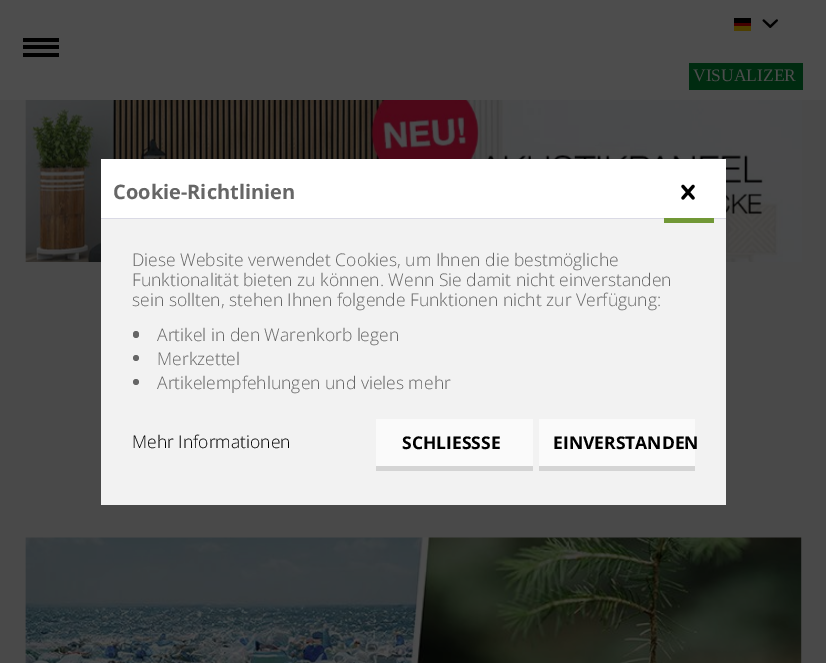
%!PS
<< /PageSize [826 663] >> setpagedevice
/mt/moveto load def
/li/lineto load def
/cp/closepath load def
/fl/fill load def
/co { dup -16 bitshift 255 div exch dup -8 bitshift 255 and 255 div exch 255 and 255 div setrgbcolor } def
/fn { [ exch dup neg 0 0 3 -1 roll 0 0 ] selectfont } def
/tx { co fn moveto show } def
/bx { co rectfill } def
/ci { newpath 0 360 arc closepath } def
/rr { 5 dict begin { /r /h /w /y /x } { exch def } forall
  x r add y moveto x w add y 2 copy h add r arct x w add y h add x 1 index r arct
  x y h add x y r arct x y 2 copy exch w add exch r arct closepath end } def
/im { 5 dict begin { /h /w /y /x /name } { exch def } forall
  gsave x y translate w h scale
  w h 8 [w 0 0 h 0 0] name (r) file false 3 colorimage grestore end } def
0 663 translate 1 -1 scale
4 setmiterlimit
0 0 826 663 16#494949 bx
0 0 826 100 16#4D4D4D bx
734 18 17 5 16#000000 bx
734 23 17 3 16#420000 bx
734 26 17 5 16#4D3E00 bx
(media/1.raw) 762 19 16 9 im
23 45 36 4 16#000000 bx
23 38 36 4 16#000000 bx
23 53 36 4 16#000000 bx
689 63 114 27 16#002B10 bx
(media/2.raw) 25 100 777 162 im
(media/3.raw) 25 537 777 126 im
101 159 625 59 16#FFFFFF bx
101 218 625 1 16#DADAE5 bx
101 219 625 286 16#F2F2F2 bx
16#719836 co
664 218 mt 664 223 li 714 223 li 714 173 li 714 218 li cp fl
(media/4.raw) 681 184 14 16 im
16#666666 co
133 331 6 7 3 rr fl
136 358 3 ci fl
136 382 3 ci fl
16#D4D4D4 co
376 424 mt 376 471 li 533 471 li 533 424 li 532 424 li 532 466 li 376 466 li cp fl
376 419 157 47 16#FAFAFA bx
539 466 156 5 16#D4D4D4 bx
539 419 156 47 16#FAFAFA bx
(VISUALIZER) 693 81 /LiberationSerif-Regular 17.5 16#4D4D4D tx
(Cookie-Richtlinien) 113 199 /OpenSans-Bold 20 16#666666 tx
(Diese Website verwendet Cookies, um Ihnen die bestmögliche) 132 266 /OpenSans-Light 17.5 16#666666 tx
(Funktionalität bieten zu können. Wenn Sie damit nicht einverstanden) 132 286 /OpenSans-Light 17.5 16#666666 tx
(sein sollten, stehen Ihnen folgende Funktionen nicht zur Verfügung:) 132 306 /OpenSans-Light 17.5 16#666666 tx
(Artikel in den Warenkorb legen) 157 341 /OpenSans-Light 17.5 16#666666 tx
(Merkzettel) 157 365 /OpenSans-Light 17.5 16#666666 tx
(Artikelempfehlungen und vieles mehr) 157 389 /OpenSans-Light 17.5 16#666666 tx
(Mehr Informationen) 132 448 /OpenSans-Light 17.5 16#000000 tx
(SCHLIESSSE) 402 449 /OpenSans-Bold 17.5 16#000000 tx
(EINVERSTANDEN) 553 449 /OpenSans-Bold 17.5 16#000000 tx
showpage
